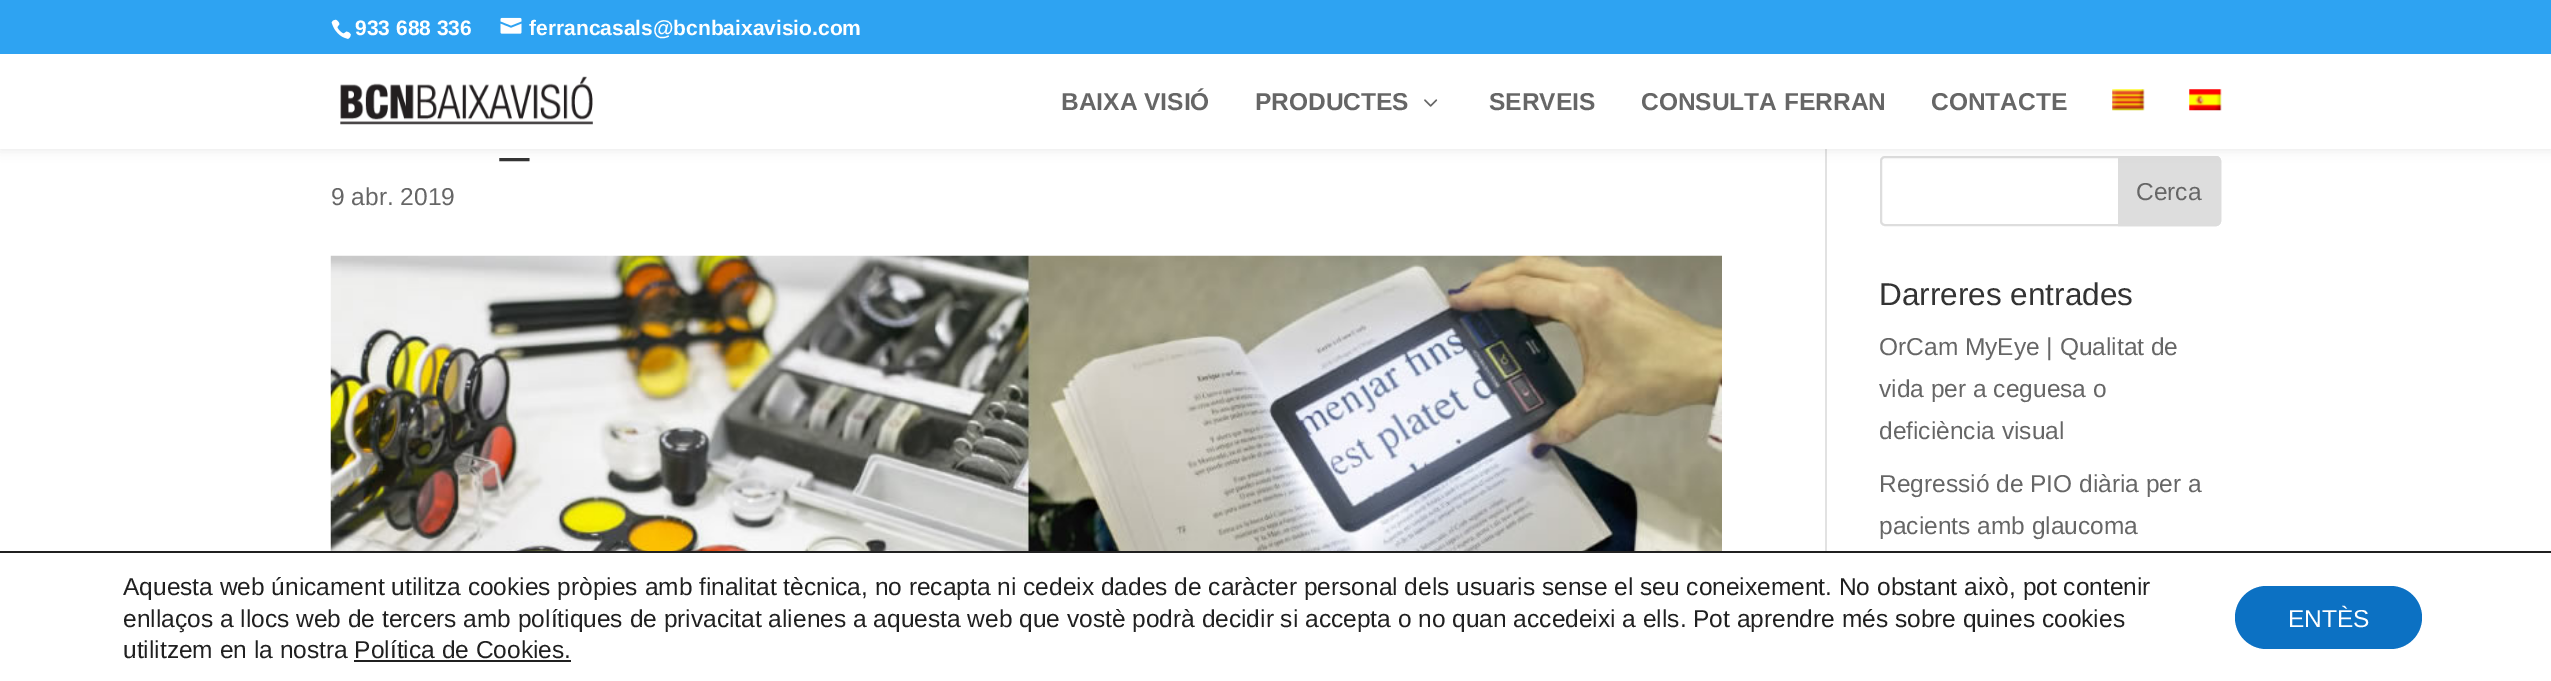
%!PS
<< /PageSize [2551 681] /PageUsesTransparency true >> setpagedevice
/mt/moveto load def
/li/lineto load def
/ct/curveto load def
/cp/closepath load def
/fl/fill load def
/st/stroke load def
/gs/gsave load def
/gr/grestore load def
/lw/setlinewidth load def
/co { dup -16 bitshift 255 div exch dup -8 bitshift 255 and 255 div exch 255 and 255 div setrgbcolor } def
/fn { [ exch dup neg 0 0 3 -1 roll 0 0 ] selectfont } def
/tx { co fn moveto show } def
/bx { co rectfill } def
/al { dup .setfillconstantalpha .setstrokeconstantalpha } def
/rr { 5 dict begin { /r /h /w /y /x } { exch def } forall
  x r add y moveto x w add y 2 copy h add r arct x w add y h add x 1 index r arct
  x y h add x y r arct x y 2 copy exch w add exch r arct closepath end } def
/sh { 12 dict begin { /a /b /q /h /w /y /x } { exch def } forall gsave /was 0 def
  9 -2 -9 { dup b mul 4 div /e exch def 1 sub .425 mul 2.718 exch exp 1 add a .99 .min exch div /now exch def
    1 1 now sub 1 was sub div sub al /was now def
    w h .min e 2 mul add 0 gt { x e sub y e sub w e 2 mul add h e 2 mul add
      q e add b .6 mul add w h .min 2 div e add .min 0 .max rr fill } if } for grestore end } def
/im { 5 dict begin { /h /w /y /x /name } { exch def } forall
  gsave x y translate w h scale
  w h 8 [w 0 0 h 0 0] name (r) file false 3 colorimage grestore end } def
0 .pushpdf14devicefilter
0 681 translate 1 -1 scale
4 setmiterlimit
0 0 2551 681 16#FFFFFF bx
1825 149 2 402 16#E2E2E2 bx
16#DDDDDD co
2 lw
1881 157 339 68 4 rr st
2119 157 mt 2216 157 li 2218 157 2220 159 2220 161 ct 2220 221 li 2220 223 2218 225 2216 225 ct 2119 225 li cp gs fl gr
st
16#000000 co
0 54 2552 95 0 6 .1 sh
0 0 2551 54 16#2EA3F2 bx
(media/1.raw) 331 19 20 20 im
(media/2.raw) 500 17 22 17 im
0 54 2551 95 16#FFFFFF bx
(media/3.raw) 340 76 253 49 im
(media/4.raw) 1424 99 14 8 im
(media/5.raw) 2112 89 33 22 im
(media/6.raw) 2189 89 33 22 im
(media/7.raw) 330 255 1392 296 im
0 551 2551 2 16#202020 bx
354 660 217 2 16#202020 bx
16#0C71C3 co
2235 586 187 63 31.5 rr fl
(933 688 336) 355 35 /LiberationSans-Bold 21 16#FFFFFF tx
(ferrancasals@bcnbaixavisio.com) 529 35 /LiberationSans-Bold 21 16#FFFFFF tx
(BAIXA VISIÓ) 1061 110 /LiberationSans-Bold 24.5 16#666666 tx
(PRODUCTES) 1255 110 /LiberationSans-Bold 24.5 16#666666 tx
(SERVEIS) 1489 110 /LiberationSans-Bold 24.5 16#666666 tx
(CONSULTA FERRAN) 1641 110 /LiberationSans-Bold 24.5 16#666666 tx
(CONTACTE) 1931 110 /LiberationSans-Bold 24.5 16#666666 tx
(_) 500 151 /LiberationSans-Regular 52 16#333333 tx
(9 abr. 2019) 331 205 /LiberationSans-Regular 24.5 16#666666 tx
(Cerca) 2136 200 /LiberationSans-Regular 24.5 16#666666 tx
(Darreres entrades) 1879 305 /LiberationSans-Regular 31.5 16#333333 tx
(OrCam MyEye | Qualitat de) 1879 355 /LiberationSans-Regular 24.5 16#666666 tx
(vida per a ceguesa o) 1879 397 /LiberationSans-Regular 24.5 16#666666 tx
(deficiència visual) 1879 439 /LiberationSans-Regular 24.5 16#666666 tx
(Regressió de PIO diària per a) 1879 492 /LiberationSans-Regular 24.5 16#666666 tx
(pacients amb glaucoma) 1879 534 /LiberationSans-Regular 24.5 16#666666 tx
(Aquesta web únicament utilitza cookies pròpies amb finalitat tècnica, no recapta ni cedeix dades de caràcter personal dels usuaris sense el seu coneixement. No obstant això, pot contenir) 123 595 /LiberationSans-Regular 24.5 16#202020 tx
(enllaços a llocs web de tercers amb polítiques de privacitat alienes a aquesta web que vostè podrà decidir si accepta o no quan accedeixi a ells. Pot aprendre més sobre quines cookies) 123 627 /LiberationSans-Regular 24.5 16#202020 tx
(utilitzem en la nostra Política de Cookies.) 123 658 /LiberationSans-Regular 24.5 16#202020 tx
(ENTÈS) 2288 627 /LiberationSans-Regular 24.5 16#FFFFFF tx
.poppdf14devicefilter showpage
